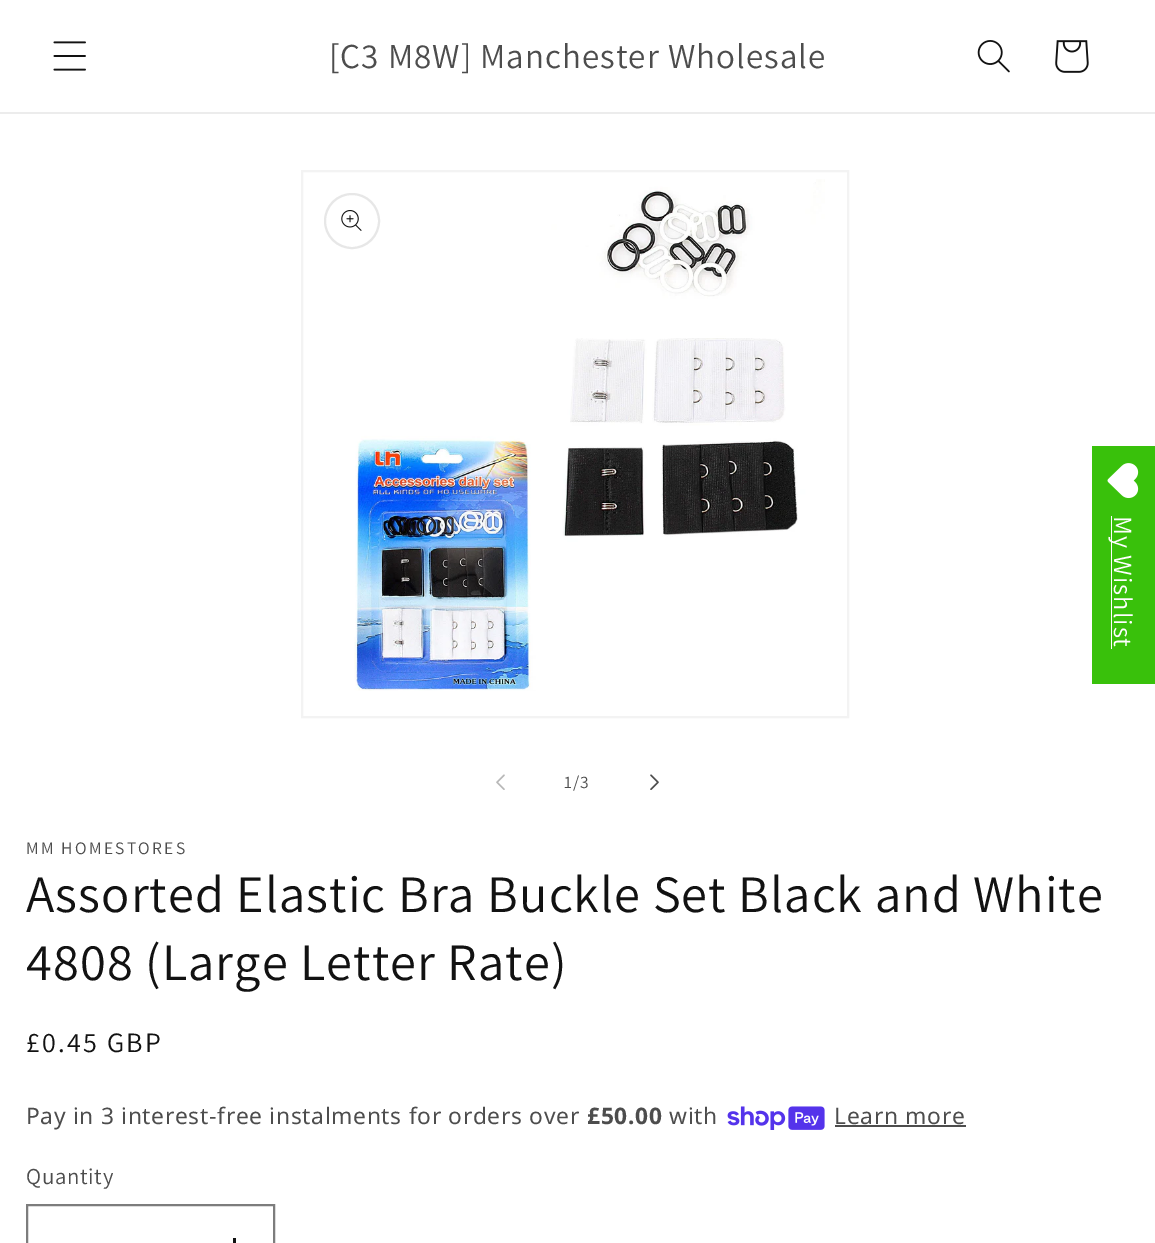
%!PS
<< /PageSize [1155 1243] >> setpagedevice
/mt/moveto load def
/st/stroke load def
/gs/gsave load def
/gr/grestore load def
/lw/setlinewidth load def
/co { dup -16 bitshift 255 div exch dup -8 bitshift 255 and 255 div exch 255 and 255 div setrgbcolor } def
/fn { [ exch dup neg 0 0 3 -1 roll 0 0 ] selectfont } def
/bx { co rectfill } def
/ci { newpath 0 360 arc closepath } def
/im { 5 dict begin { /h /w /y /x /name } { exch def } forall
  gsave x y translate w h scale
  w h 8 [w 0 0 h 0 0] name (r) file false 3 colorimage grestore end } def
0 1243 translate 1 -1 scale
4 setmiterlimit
0 0 1155 1243 16#FFFFFF bx
0 112 1155 2 16#ECECEC bx
(media/1.raw) 53 41 33 30 im
(media/2.raw) 977 40 33 33 im
(media/3.raw) 1055 40 34 33 im
1092 446 63 238 16#39C10B bx
(media/4.raw) 1107 463 32 36 im
1111 516 1 133 16#FFFFFF bx
16#F3F3F3 co
2 lw
302 171 546 546 rectstroke
(media/6.raw) 354 179 471 512 im
16#E7E7E7 co
352 221 27 ci st
(media/5.raw) 341 210 21 21 im
(media/7.raw) 496 774 9 16 im
(media/8.raw) 650 774 9 16 im
(media/9.raw) 727 1106 98 24 im
835 1125 131 2 16#4D4D4D bx
233 1238 3 5 16#121212 bx
16#7D7D7D co
27 1205 247 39 rectstroke
/Assistant-Regular 35 fn
16#4D4D4D co
329 68 mt 1.05 0 ([C3 M8W] Manchester Wholesale) ashow
/Assistant-Regular 26.25 fn
16#FFFFFF co
gs 1114 516 translate 90 rotate 0 0 mt 1.05 0 (My Wishlist) ashow gr
/Assistant-Regular 17.5 fn
16#4D4D4D co
564 788 mt 1 0 (1/3) ashow
26 854 mt 2.25 0 (MM HOMESTORES) ashow
/Assistant-Regular 52.5 fn
16#121212 co
26 912 mt 1.05 0 (Assorted Elastic Bra Buckle Set Black and White) ashow
26 980 mt 1.05 0 (4808 \(Large Letter Rate\)) ashow
/Assistant-Regular 28 fn
26 1052 mt 2.25 0 (£0.45 GBP) ashow
/NotoSans-Regular 22.75 fn
16#4D4D4D co
26 1124 mt .7 0 (Pay in 3 interest-free instalments for orders over) ashow
/NotoSans-Bold 22.75 fn
587 1124 mt .7 0 (£50.00) ashow
/NotoSans-Regular 22.75 fn
669 1124 mt .7 0 (with) ashow
834 1124 mt .7 0 (Learn more) ashow
/Assistant-Regular 22.75 fn
26 1184 mt .7 0 (Quantity) ashow
showpage
